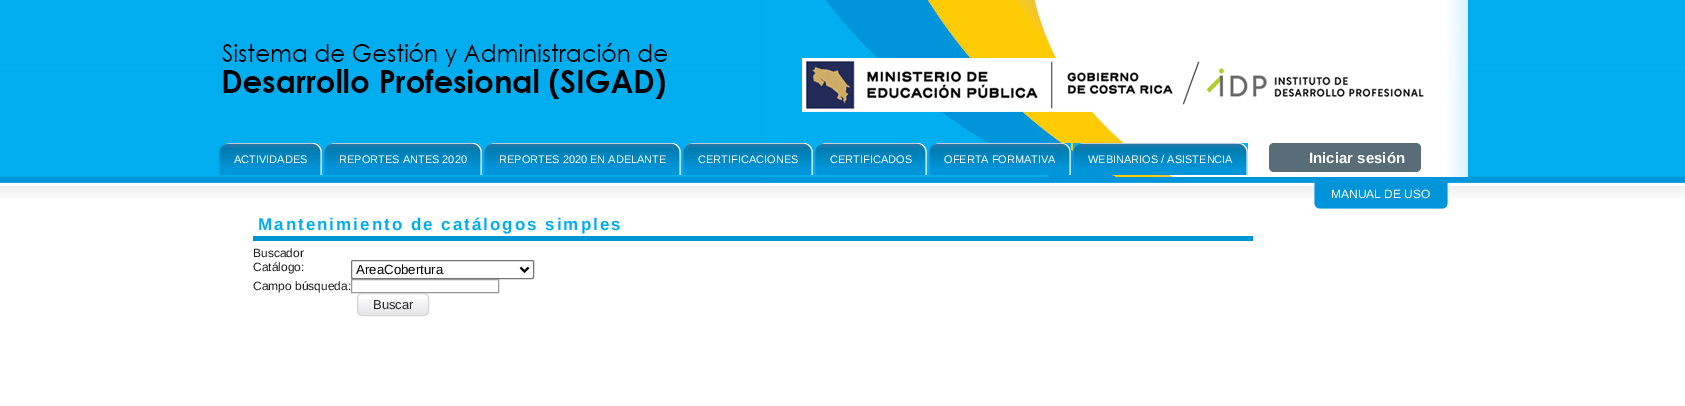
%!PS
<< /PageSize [1685 406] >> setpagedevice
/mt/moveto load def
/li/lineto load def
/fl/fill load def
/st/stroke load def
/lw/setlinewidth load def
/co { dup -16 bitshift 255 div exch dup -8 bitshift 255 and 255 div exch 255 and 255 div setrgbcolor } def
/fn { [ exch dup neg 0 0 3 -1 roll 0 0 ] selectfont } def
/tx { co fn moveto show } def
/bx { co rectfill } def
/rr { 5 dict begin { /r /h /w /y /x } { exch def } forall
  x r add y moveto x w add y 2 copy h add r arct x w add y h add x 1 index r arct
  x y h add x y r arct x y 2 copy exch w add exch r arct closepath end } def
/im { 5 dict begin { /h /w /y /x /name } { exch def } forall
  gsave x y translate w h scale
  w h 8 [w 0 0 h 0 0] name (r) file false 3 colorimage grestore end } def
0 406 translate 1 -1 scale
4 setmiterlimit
0 0 1685 406 16#FFFFFF bx
(media/1.raw) 0 0 1685 198 im
(media/2.raw) 763 0 705 177 im
(media/3.raw) 220 41 448 58 im
(media/4.raw) 231 143 80 32 im
(media/5.raw) 219 143 12 32 im
(media/6.raw) 311 143 11 32 im
(media/7.raw) 335 143 136 32 im
(media/8.raw) 324 143 11 32 im
(media/6.raw) 471 143 11 32 im
(media/9.raw) 495 143 175 32 im
(media/8.raw) 484 143 11 32 im
(media/6.raw) 670 143 11 32 im
(media/10.raw) 694 143 108 32 im
(media/8.raw) 683 143 11 32 im
(media/6.raw) 802 143 11 32 im
(media/11.raw) 826 143 90 32 im
(media/8.raw) 815 143 11 32 im
(media/6.raw) 916 143 11 32 im
(media/12.raw) 940 143 120 32 im
(media/8.raw) 929 143 11 32 im
(media/6.raw) 1060 143 11 32 im
(media/13.raw) 1084 143 153 32 im
(media/8.raw) 1073 143 11 32 im
(media/6.raw) 1237 143 11 32 im
16#586D77 co
1269 143 152 29 5 rr fl
(media/14.raw) 1322 177 126 32 im
(media/15.raw) 1314 177 8 32 im
(media/16.raw) 1438 179 10 30 im
253 236 1000 5 16#0096D3 bx
16#767676 co
351.5 260.5 182 18 1.5 rr st
16#000000 co
2 lw
520.5 267.5 mt 524.5 271.5 li 528.5 267.5 li st
16#999999 co
1 lw
351.5 279.5 147 13 rectstroke
(media/17.raw) 357 299 72 16 im
16#D3D5D6 co
357.5 293.5 71 22 4.5 rr st
(ACTIVIDADES) 234 163 /LiberationSans-Regular 11 16#FFFFFF tx
(REPORTES ANTES 2020) 339 163 /LiberationSans-Regular 11 16#FFFFFF tx
(REPORTES 2020 EN ADELANTE) 499 163 /LiberationSans-Regular 11 16#FFFFFF tx
(CERTIFICACIONES) 698 163 /LiberationSans-Regular 11 16#FFFFFF tx
(CERTIFICADOS) 830 163 /LiberationSans-Regular 11 16#FFFFFF tx
(OFERTA FORMATIVA) 944 163 /LiberationSans-Regular 11 16#FFFFFF tx
(WEBINARIOS / ASISTENCIA) 1088 163 /LiberationSans-Regular 11 16#FFFFFF tx
(Iniciar sesión) 1309 163 /LiberationSans-Bold 15 16#FFFFFF tx
(MANUAL DE USO) 1331 198 /LiberationSans-Regular 12 16#FFFFFF tx
/LiberationSans-Bold 17 fn
16#00ADEF co
258 230 mt 2 0 (Mantenimiento de catálogos simples) ashow
(Buscador) 253 257 /LiberationSans-Regular 12 16#1D1D1D tx
(Catálogo:) 253 271 /LiberationSans-Regular 12 16#1D1D1D tx
(AreaCobertura) 356 274 /LiberationSans-Regular 13.25 16#000000 tx
(Campo búsqueda:) 253 290 /LiberationSans-Regular 12 16#1D1D1D tx
(Buscar) 373 309 /LiberationSans-Regular 13 16#2A2728 tx
showpage
